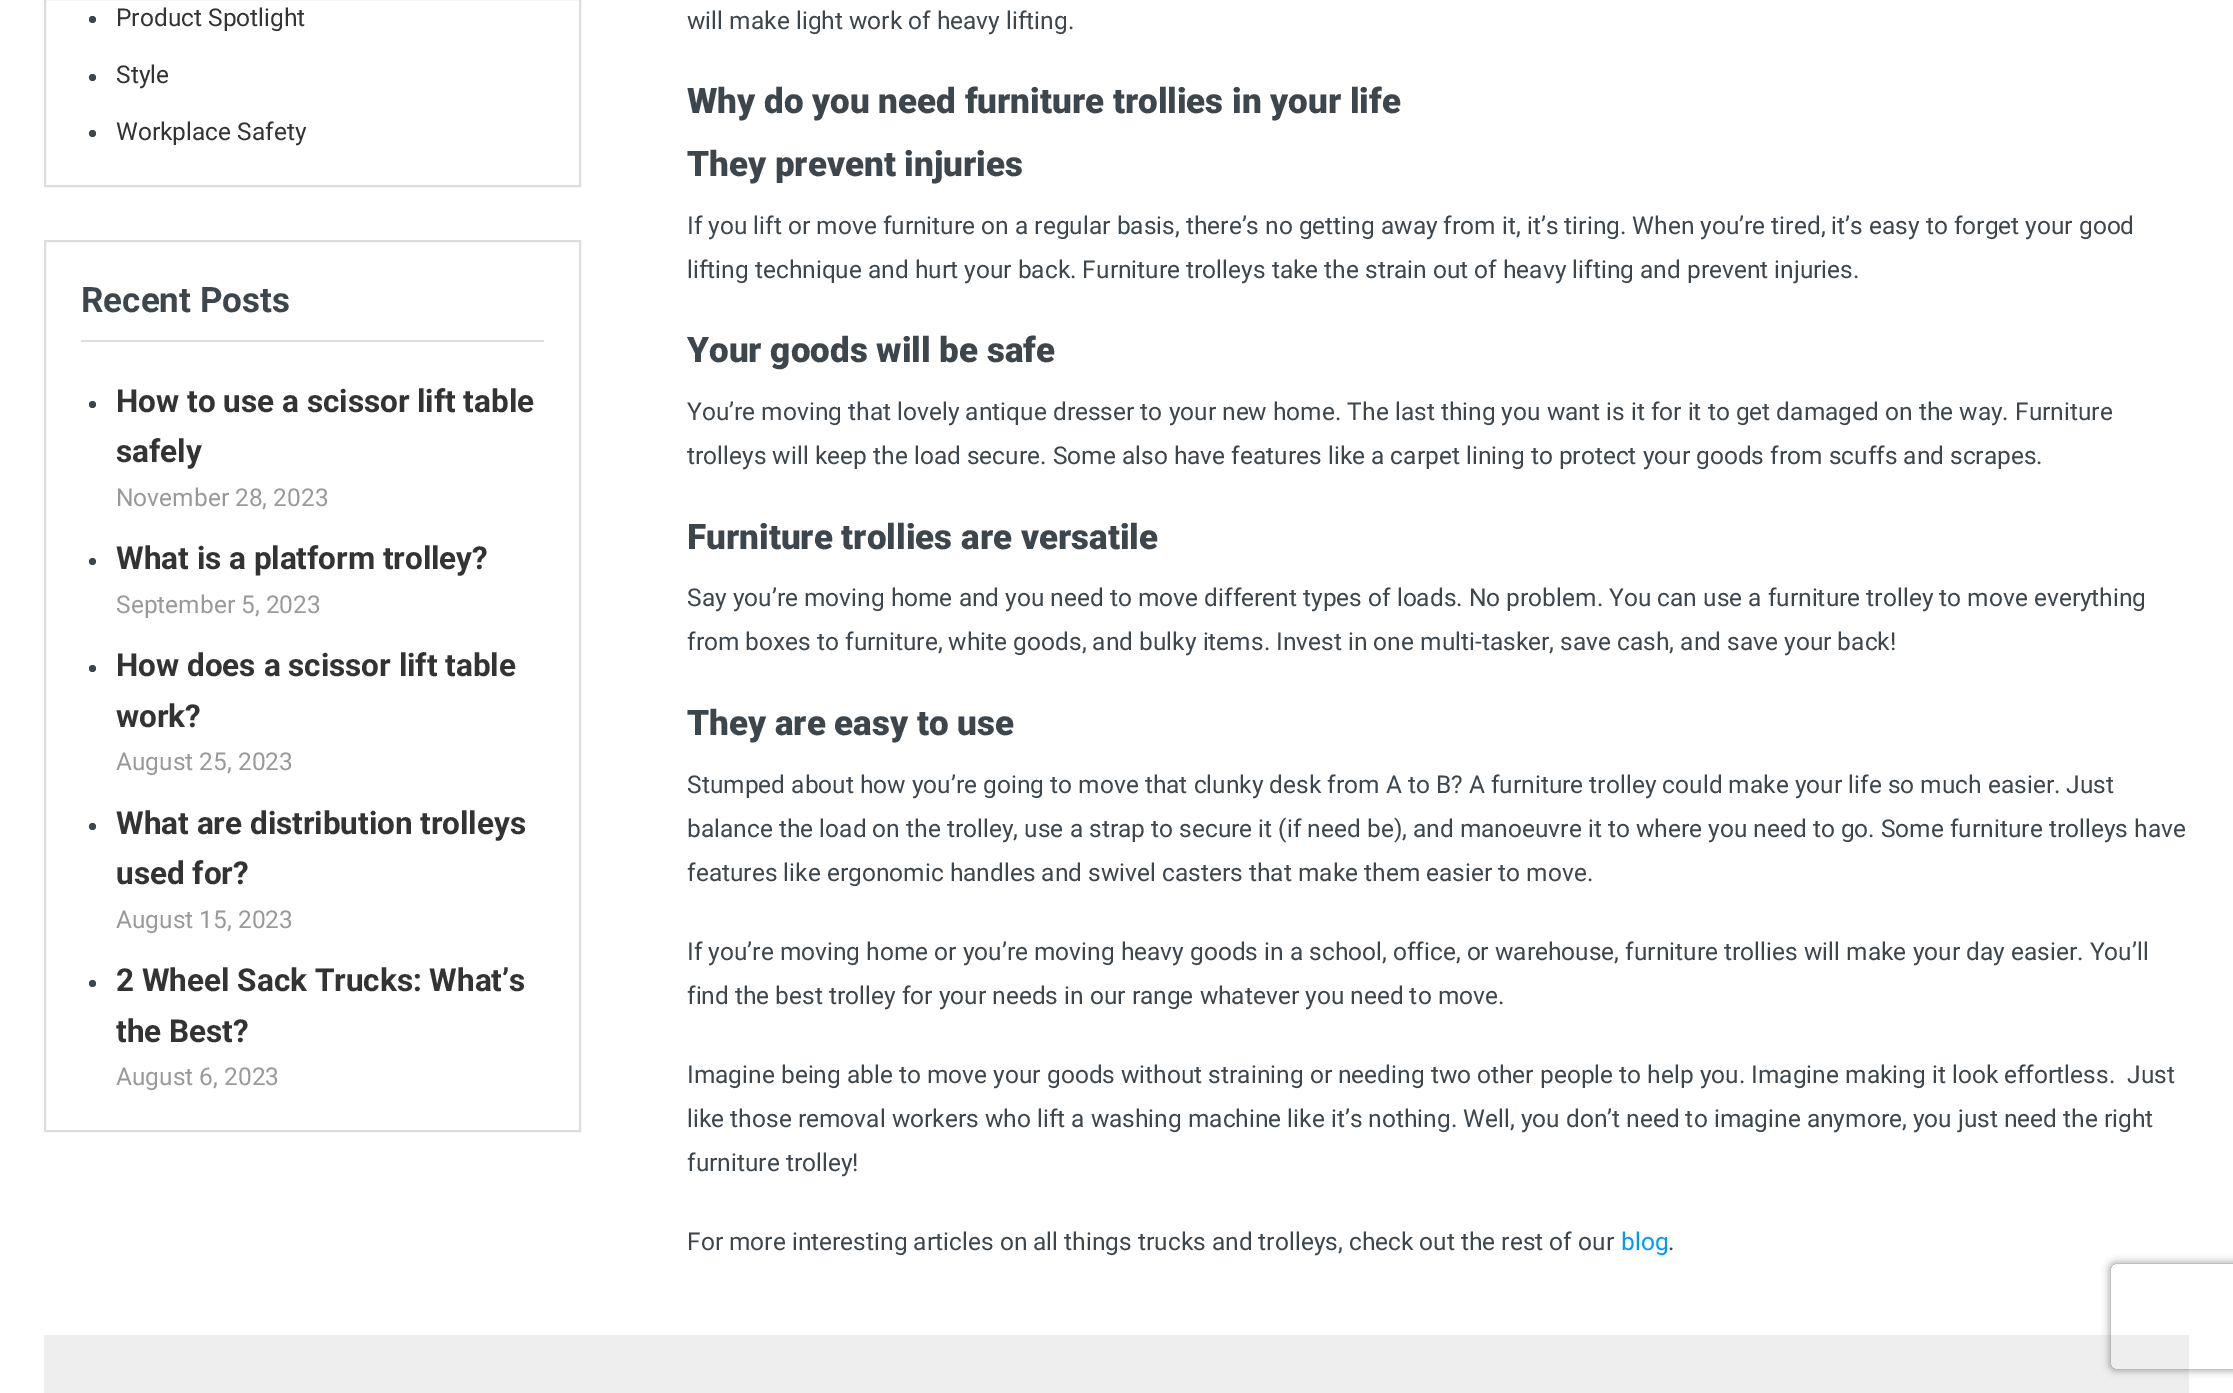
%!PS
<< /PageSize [2233 1393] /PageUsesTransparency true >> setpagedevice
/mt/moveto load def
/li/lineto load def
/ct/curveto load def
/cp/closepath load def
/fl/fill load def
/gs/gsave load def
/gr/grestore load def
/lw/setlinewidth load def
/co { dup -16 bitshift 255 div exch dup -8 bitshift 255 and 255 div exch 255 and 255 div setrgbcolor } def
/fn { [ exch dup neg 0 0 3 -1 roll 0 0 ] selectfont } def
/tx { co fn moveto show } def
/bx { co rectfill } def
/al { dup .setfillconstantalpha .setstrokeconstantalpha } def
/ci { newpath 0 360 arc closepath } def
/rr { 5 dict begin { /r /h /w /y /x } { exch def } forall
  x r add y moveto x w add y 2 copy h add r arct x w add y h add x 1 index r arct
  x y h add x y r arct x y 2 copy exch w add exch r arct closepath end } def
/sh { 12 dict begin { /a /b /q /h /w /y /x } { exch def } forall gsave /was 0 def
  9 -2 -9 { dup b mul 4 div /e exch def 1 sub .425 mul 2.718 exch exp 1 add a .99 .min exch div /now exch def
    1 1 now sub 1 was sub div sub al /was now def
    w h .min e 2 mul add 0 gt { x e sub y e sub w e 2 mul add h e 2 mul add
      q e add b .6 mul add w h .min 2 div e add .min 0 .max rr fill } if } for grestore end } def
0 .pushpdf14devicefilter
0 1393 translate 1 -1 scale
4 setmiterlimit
0 0 2233 1393 16#FFFFFF bx
16#DDDDDD co
2 lw
45 -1 535 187 rectstroke
16#3D464D co
92.5 19.5 3.5 ci fl
92.5 77.5 3.5 ci fl
92.5 133.5 3.5 ci fl
16#DDDDDD co
45 241 535 890 rectstroke
81 340 463 2 16#DDDDDD bx
16#3D464D co
92.5 404.5 3.5 ci fl
92.5 561.5 3.5 ci fl
92.5 668.5 3.5 ci fl
92.5 826.5 3.5 ci fl
92.5 983.5 3.5 ci fl
44 1335 2145 58 16#EEEEEE bx
gs
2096 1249 mt 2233 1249 li 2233 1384 li 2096 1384 li cp 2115 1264 mt 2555 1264 li 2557 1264 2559 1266 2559 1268 ct 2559 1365 li 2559 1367 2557 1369 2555 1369 ct 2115 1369 li 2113 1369 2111 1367 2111 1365 ct 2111 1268 li 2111 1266 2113 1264 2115 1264 ct cp eoclip newpath
16#808080 co
2111 1264 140 105 4 4.5 1 sh
gr
(Product Spotlight) 116 26 /Roboto-Regular 24.5 16#333333 tx
(Style) 116 83 /Roboto-Regular 24.5 16#333333 tx
(Workplace Safety) 116 140 /Roboto-Regular 24.5 16#333333 tx
(Recent Posts) 81 312 /Roboto-Bold 35 16#3D464D tx
(How to use a scissor lift table) 116 412 /Roboto-Bold 31.5 16#333333 tx
(safely) 116 462 /Roboto-Bold 31.5 16#333333 tx
(November 28, 2023) 116 506 /Roboto-Regular 24.5 16#999999 tx
(What is a platform trolley?) 116 569 /Roboto-Bold 31.5 16#333333 tx
(September 5, 2023) 116 613 /Roboto-Regular 24.5 16#999999 tx
(How does a scissor lift table) 116 676 /Roboto-Bold 31.5 16#333333 tx
(work?) 116 727 /Roboto-Bold 31.5 16#333333 tx
(August 25, 2023) 116 770 /Roboto-Regular 24.5 16#999999 tx
(What are distribution trolleys) 116 834 /Roboto-Bold 31.5 16#333333 tx
(used for?) 116 884 /Roboto-Bold 31.5 16#333333 tx
(August 15, 2023) 116 928 /Roboto-Regular 24.5 16#999999 tx
(2 Wheel Sack Trucks: What’s) 116 991 /Roboto-Bold 31.5 16#333333 tx
(the Best?) 116 1042 /Roboto-Bold 31.5 16#333333 tx
(August 6, 2023) 116 1085 /Roboto-Regular 24.5 16#999999 tx
(will make light work of heavy lifting.) 687 29 /Roboto-Regular 24.5 16#3D464D tx
(Why do you need furniture trollies in your life) 687 113 /Roboto-Black 35 16#3D464D tx
(They prevent injuries) 687 176 /Roboto-Black 35 16#3D464D tx
(If you lift or move furniture on a regular basis, there’s no getting away from it, it’s tiring. When you’re tired, it’s easy to forget your good) 687 234 /Roboto-Regular 24.5 16#3D464D tx
(lifting technique and hurt your back. Furniture trolleys take the strain out of heavy lifting and prevent injuries.) 687 278 /Roboto-Regular 24.5 16#3D464D tx
(Your goods will be safe) 687 362 /Roboto-Black 35 16#3D464D tx
(You’re moving that lovely antique dresser to your new home. The last thing you want is it for it to get damaged on the way. Furniture) 687 420 /Roboto-Regular 24.5 16#3D464D tx
(trolleys will keep the load secure. Some also have features like a carpet lining to protect your goods from scuffs and scrapes.) 687 464 /Roboto-Regular 24.5 16#3D464D tx
(Furniture trollies are versatile) 687 549 /Roboto-Black 35 16#3D464D tx
(Say you’re moving home and you need to move different types of loads. No problem. You can use a furniture trolley to move everything) 687 606 /Roboto-Regular 24.5 16#3D464D tx
(from boxes to furniture, white goods, and bulky items. Invest in one multi-tasker, save cash, and save your back!) 687 650 /Roboto-Regular 24.5 16#3D464D tx
(They are easy to use) 687 735 /Roboto-Black 35 16#3D464D tx
(Stumped about how you’re going to move that clunky desk from A to B? A furniture trolley could make your life so much easier. Just) 687 793 /Roboto-Regular 24.5 16#3D464D tx
(balance the load on the trolley, use a strap to secure it \(if need be\), and manoeuvre it to where you need to go. Some furniture trolleys have) 687 837 /Roboto-Regular 24.5 16#3D464D tx
(features like ergonomic handles and swivel casters that make them easier to move.) 687 881 /Roboto-Regular 24.5 16#3D464D tx
(If you’re moving home or you’re moving heavy goods in a school, office, or warehouse, furniture trollies will make your day easier. You’ll) 687 960 /Roboto-Regular 24.5 16#3D464D tx
(find the best trolley for your needs in our range whatever you need to move.) 687 1004 /Roboto-Regular 24.5 16#3D464D tx
(Imagine being able to move your goods without straining or needing two other people to help you. Imagine making it look effortless.  Just) 687 1083 /Roboto-Regular 24.5 16#3D464D tx
(like those removal workers who lift a washing machine like it’s nothing. Well, you don’t need to imagine anymore, you just need the right) 687 1127 /Roboto-Regular 24.5 16#3D464D tx
(furniture trolley!) 687 1171 /Roboto-Regular 24.5 16#3D464D tx
(For more interesting articles on all things trucks and trolleys, check out the rest of our) 687 1250 /Roboto-Regular 24.5 16#3D464D tx
(blog) 1621 1250 /Roboto-Regular 24.5 16#0099FF tx
(.) 1668 1250 /Roboto-Regular 24.5 16#3D464D tx
.poppdf14devicefilter showpage
